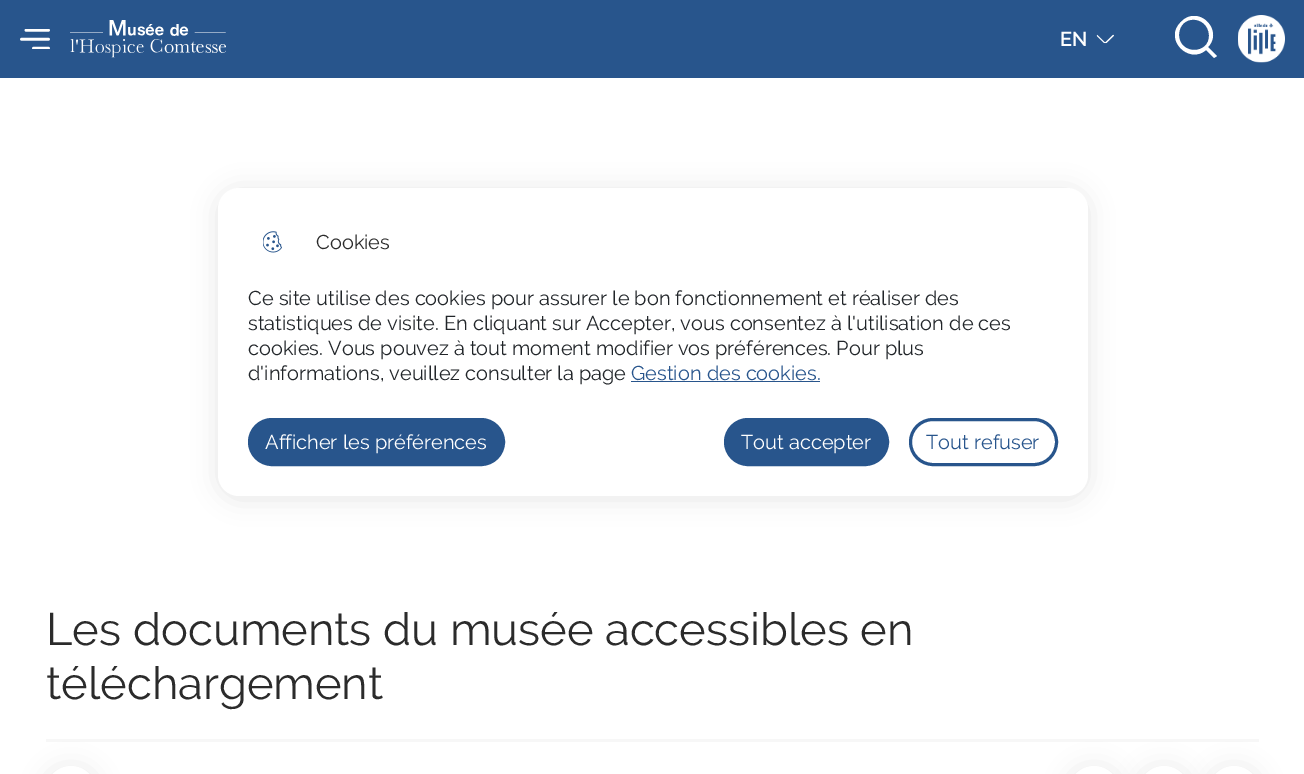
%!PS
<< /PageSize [1304 774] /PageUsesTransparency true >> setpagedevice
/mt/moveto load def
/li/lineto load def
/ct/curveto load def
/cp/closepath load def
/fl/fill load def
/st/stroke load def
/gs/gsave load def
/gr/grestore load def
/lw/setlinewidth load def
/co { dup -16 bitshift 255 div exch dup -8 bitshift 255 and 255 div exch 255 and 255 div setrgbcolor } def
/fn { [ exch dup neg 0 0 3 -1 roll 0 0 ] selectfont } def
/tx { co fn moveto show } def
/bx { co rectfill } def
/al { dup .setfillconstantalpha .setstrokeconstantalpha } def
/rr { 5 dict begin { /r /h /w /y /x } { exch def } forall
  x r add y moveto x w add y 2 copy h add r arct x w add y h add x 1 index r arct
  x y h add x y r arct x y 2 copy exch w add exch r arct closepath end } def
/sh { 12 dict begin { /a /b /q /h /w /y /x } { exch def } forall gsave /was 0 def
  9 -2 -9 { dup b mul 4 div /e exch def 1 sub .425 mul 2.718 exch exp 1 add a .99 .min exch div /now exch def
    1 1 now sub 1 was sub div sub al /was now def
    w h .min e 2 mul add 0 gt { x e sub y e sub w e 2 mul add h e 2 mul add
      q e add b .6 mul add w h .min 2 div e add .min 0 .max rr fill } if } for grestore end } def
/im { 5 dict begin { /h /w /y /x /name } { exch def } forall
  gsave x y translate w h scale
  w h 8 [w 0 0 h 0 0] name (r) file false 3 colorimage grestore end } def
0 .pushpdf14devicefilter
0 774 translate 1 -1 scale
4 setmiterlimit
0 0 1304 774 16#FFFFFF bx
0 0 1304 78 16#28558C bx
(media/1.raw) 70 20 156 38 im
(media/2.raw) 20 29 30 20 im
(media/3.raw) 1096 34 18 10 im
gs
1175 16 45 45 rectclip
16#FFFFFF co
1214 58 mt 1206 50 li 1189 65 1163 39 1181 22 ct 1198 4 1224 30 1208 47 ct 1217 56 li cp 1179 35 mt 1179 55 1210 55 1209 35 ct 1208 15 1179 14 1179 35 ct cp eofill
gr
(media/4.raw) 1238 15 47 48 im
46 739 1213 3 16#F7F7F7 bx
16#000000 co
46 769 50 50 25 12.5 .1 sh
16#FFFFFF co
46 766 50 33 25 rr fl
16#000000 co
1069 769 50 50 25 12.5 .1 sh
16#FFFFFF co
1069 766 50 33 25 rr fl
16#000000 co
1139 769 50 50 25 12.5 .1 sh
16#FFFFFF co
1139 766 50 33 25 rr fl
16#000000 co
1209 769 50 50 25 12.5 .1 sh
16#FFFFFF co
1209 766 50 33 25 rr fl
16#000000 co
218 190 870 309 21 12.5 .1 sh
16#FFFFFF co
218 188 870 308 21 rr fl
(media/5.raw) 263 231 19 22 im
631 381 189 1 16#28558C bx
249.5 419.5 254 45 22.5 rr gs fl gr
3 lw
st
725.5 419.5 162 45 22.5 rr gs fl gr
st
910.5 419.5 146 45 22.5 rr st
(EN) 1060 46 /Raleway-SemiBold 20 16#FFFFFF tx
(Les documents du musée accessibles en) 46 645 /Raleway-Regular 45.3 16#2B2B2B tx
(téléchargement) 46 699 /Raleway-Regular 45.3 16#2B2B2B tx
(Cookies) 316 249 /Raleway-Regular 20 16#2B2B2B tx
(Ce site utilise des cookies pour assurer le bon fonctionnement et réaliser des) 248 305 /Raleway-Regular 20 16#212529 tx
(statistiques de visite. En cliquant sur Accepter, vous consentez à l'utilisation de ces) 248 330 /Raleway-Regular 20 16#212529 tx
(cookies. Vous pouvez à tout moment modifier vos préférences. Pour plus) 248 355 /Raleway-Regular 20 16#212529 tx
(d'informations, veuillez consulter la page) 248 380 /Raleway-Regular 20 16#212529 tx
(Gestion des cookies.) 631 380 /Raleway-Regular 20 16#28558C tx
(Afficher les préférences) 265 449 /Raleway-Regular 20 16#FFFFFF tx
(Tout accepter) 741 449 /Raleway-Regular 20 16#FFFFFF tx
(Tout refuser) 926 449 /Raleway-Regular 20 16#28558C tx
.poppdf14devicefilter showpage
